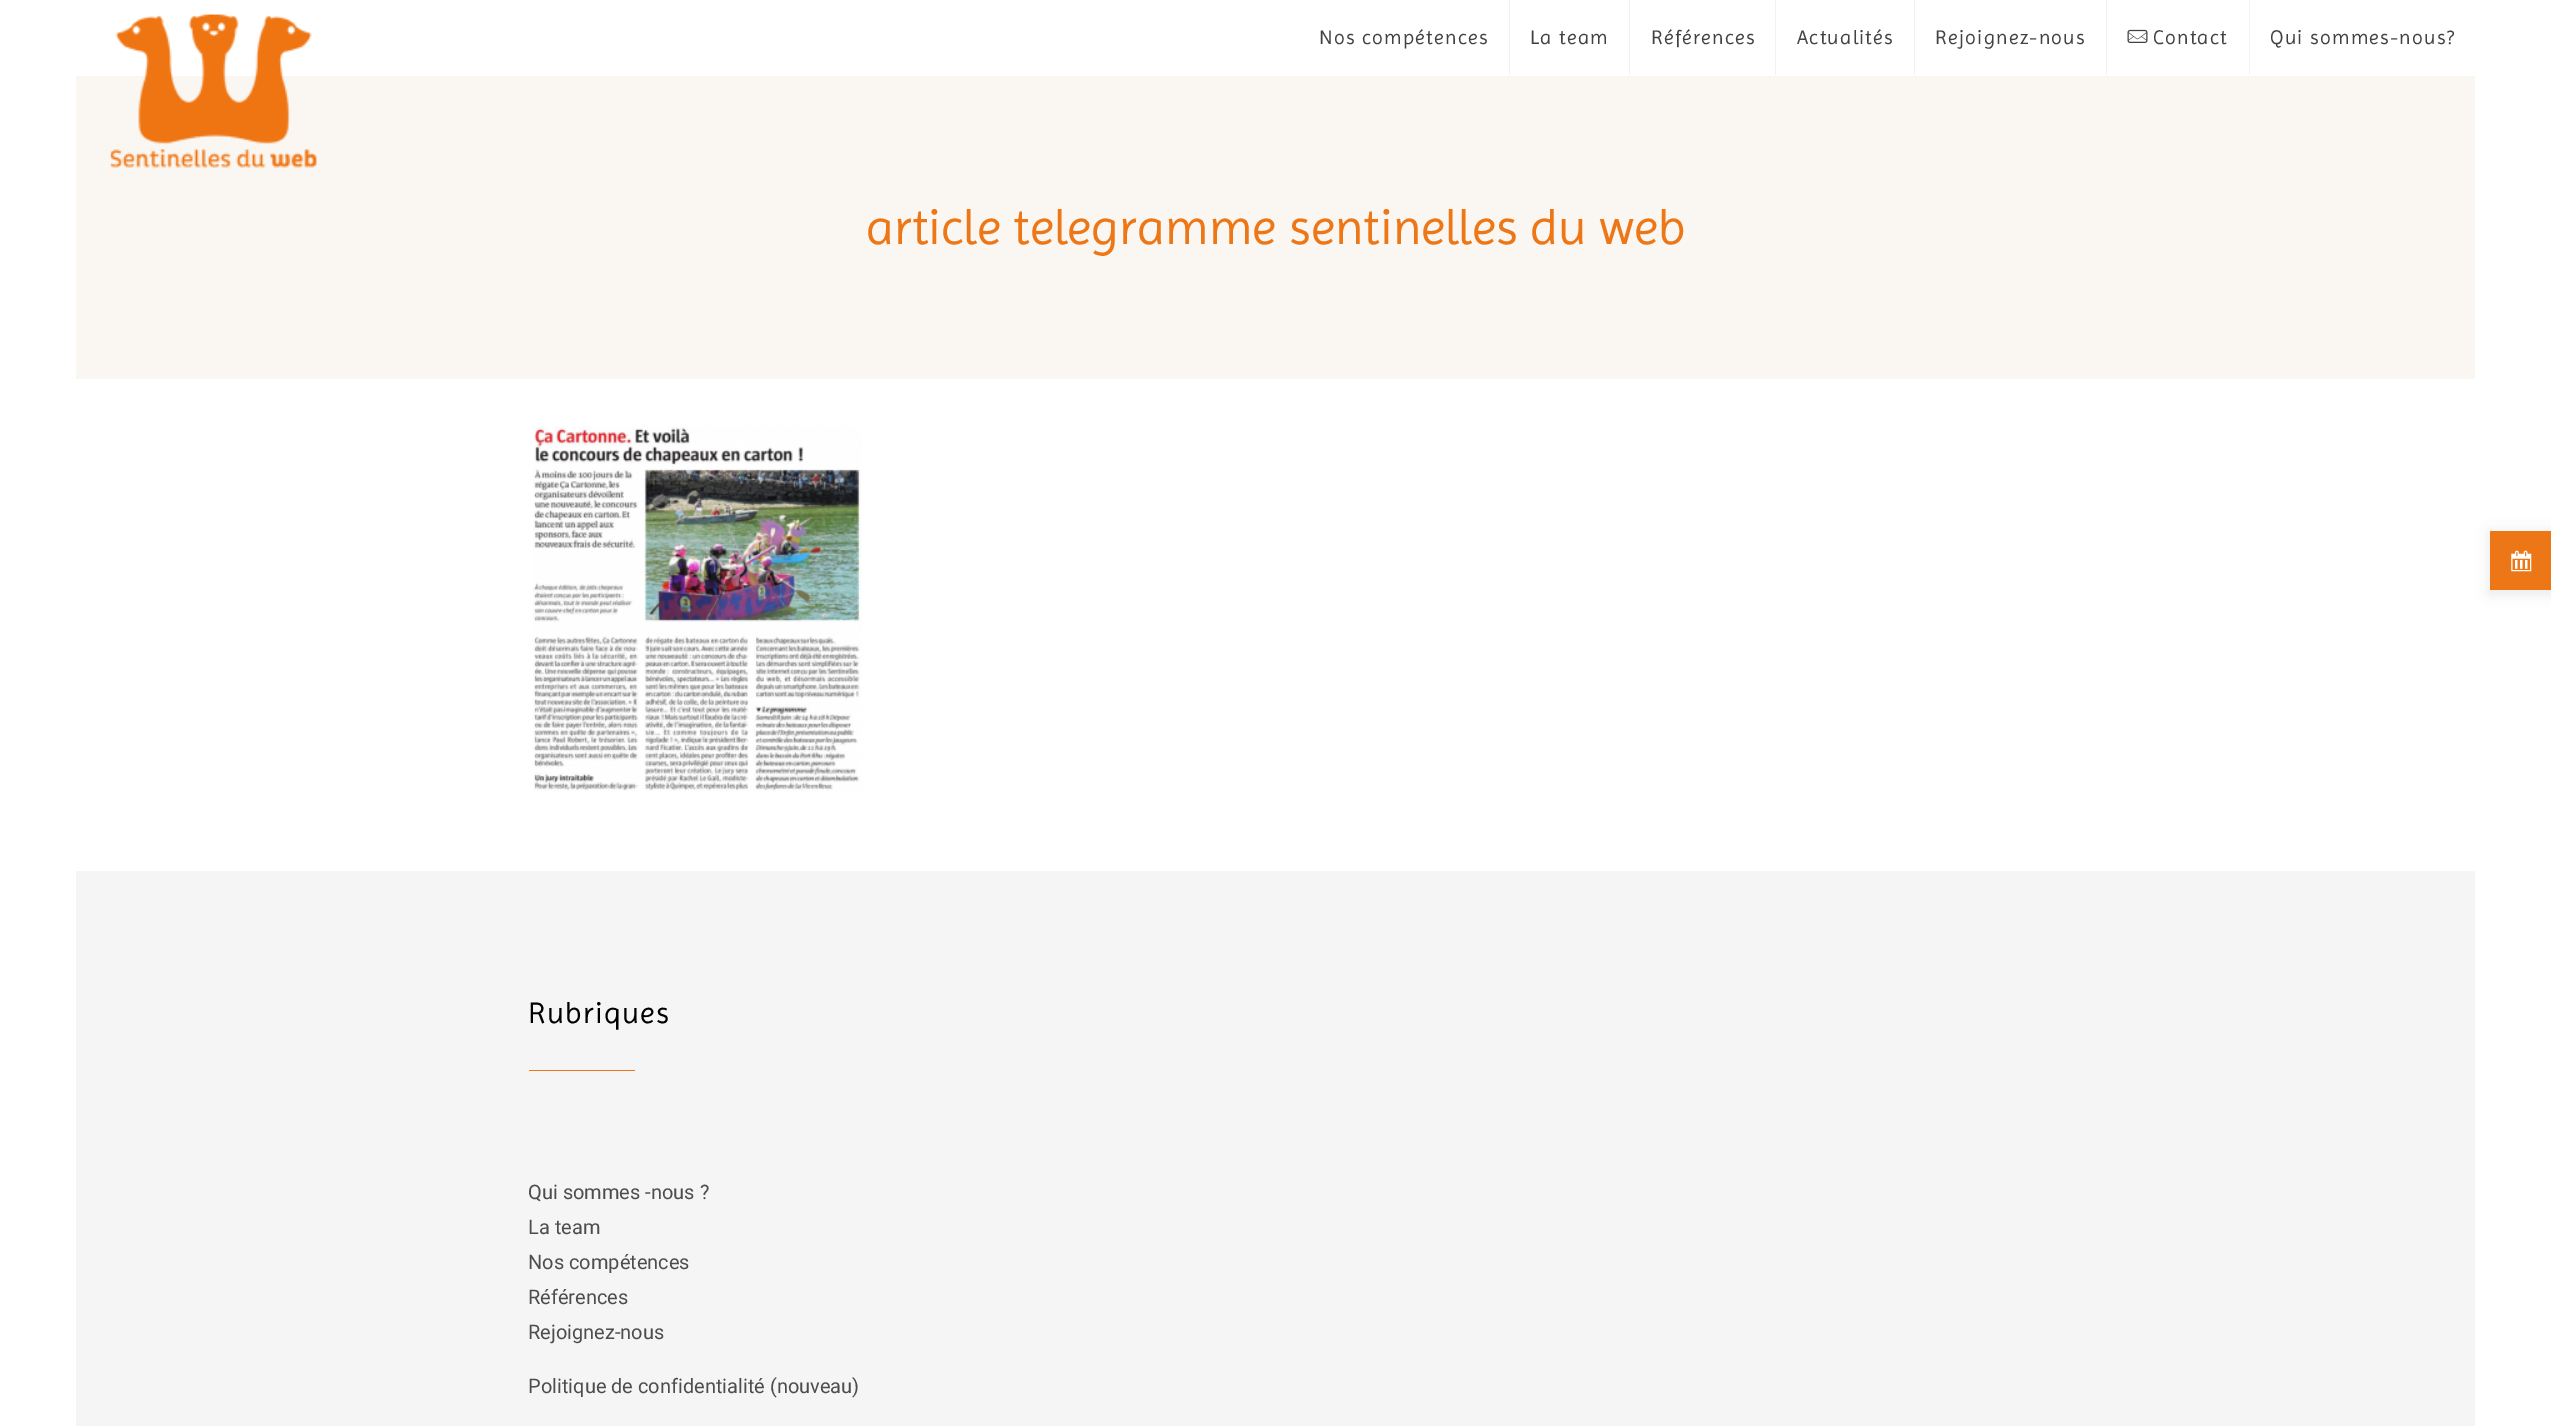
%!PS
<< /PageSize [2551 1426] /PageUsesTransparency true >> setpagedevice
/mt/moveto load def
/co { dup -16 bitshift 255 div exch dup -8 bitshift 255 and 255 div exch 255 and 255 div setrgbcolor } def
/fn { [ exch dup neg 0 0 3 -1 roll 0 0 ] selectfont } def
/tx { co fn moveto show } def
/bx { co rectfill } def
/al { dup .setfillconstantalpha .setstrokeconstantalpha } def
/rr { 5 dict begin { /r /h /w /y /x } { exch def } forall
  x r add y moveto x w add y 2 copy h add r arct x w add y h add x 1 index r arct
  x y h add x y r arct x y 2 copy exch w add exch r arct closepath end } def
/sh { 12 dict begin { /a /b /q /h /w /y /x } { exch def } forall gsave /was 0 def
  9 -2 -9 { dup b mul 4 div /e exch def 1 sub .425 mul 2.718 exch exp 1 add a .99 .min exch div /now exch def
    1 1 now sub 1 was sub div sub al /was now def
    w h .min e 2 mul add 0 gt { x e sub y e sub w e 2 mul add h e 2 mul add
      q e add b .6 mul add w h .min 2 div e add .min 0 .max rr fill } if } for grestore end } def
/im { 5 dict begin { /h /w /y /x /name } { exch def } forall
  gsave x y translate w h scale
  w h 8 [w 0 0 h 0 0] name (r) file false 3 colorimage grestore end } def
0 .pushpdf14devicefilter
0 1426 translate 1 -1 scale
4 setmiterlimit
0 0 2551 1426 16#FFFFFF bx
76 76 2399 303 16#FAF7F3 bx
(media/1.raw) 108 13 210 155 im
1509 0 1 75 16#F2F2F2 bx
1629 0 1 75 16#F2F2F2 bx
1775 0 1 75 16#F2F2F2 bx
1914 0 1 75 16#F2F2F2 bx
2106 0 1 75 16#F2F2F2 bx
2249 0 1 75 16#F2F2F2 bx
(media/2.raw) 2127 29 21 14 im
(media/3.raw) 533 426 329 365 im
76 871 2399 555 16#F5F5F5 bx
529 1070 106 1 16#ED7717 bx
16#000000 co
2488 531 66 64 0 6 .07 sh
2490 531 61 59 16#ED7717 bx
(media/4.raw) 2511 550 21 22 im
/Imprima-Regular 20 fn
16#424242 co
1319 44 mt 1.25 0 (Nos compétences) ashow
1530 44 mt 1.25 0 (La team) ashow
1651 44 mt 1.25 0 (Références) ashow
1797 44 mt 1.25 0 (Actualités) ashow
1935 44 mt 1.25 0 (Rejoignez-nous) ashow
2153 44 mt 1.25 0 (Contact) ashow
2270 44 mt 1.25 0 (Qui sommes-nous?) ashow
(article telegramme sentinelles du web) 866 244 /Imprima-Regular 50 16#ED7717 tx
/Imprima-Regular 30 fn
16#000000 co
528 1023 mt 1.25 0 (Rubriques) ashow
(Qui sommes -nous ?) 528 1199 /Roboto-Regular 20 16#4D4D4D tx
(La team) 528 1234 /Roboto-Regular 20 16#4D4D4D tx
(Nos compétences) 528 1269 /Roboto-Regular 20 16#4D4D4D tx
(Références) 528 1304 /Roboto-Regular 20 16#4D4D4D tx
(Rejoignez-nous) 528 1339 /Roboto-Regular 20 16#4D4D4D tx
(Politique de confidentialité \(nouveau\)) 528 1393 /Roboto-Regular 20 16#4D4D4D tx
.poppdf14devicefilter showpage
